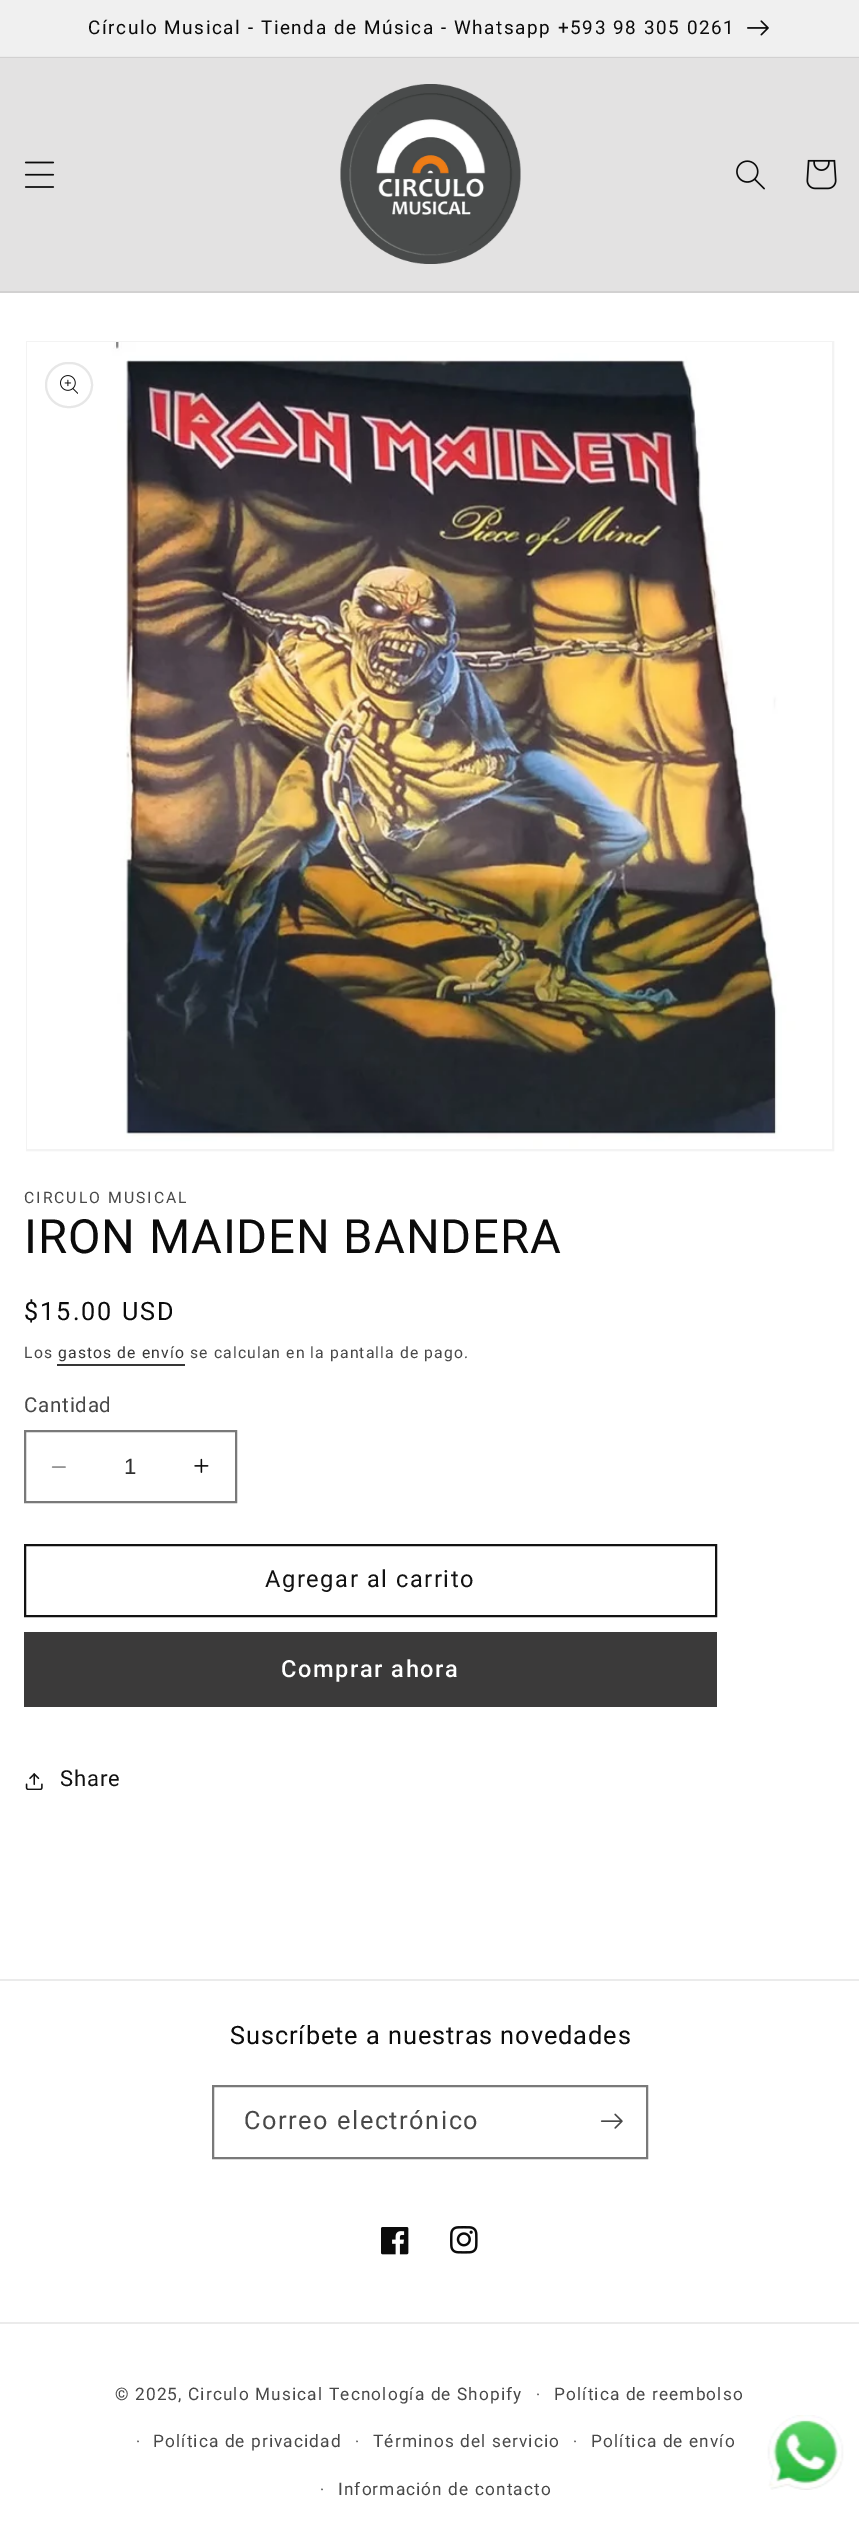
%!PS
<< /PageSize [859 2535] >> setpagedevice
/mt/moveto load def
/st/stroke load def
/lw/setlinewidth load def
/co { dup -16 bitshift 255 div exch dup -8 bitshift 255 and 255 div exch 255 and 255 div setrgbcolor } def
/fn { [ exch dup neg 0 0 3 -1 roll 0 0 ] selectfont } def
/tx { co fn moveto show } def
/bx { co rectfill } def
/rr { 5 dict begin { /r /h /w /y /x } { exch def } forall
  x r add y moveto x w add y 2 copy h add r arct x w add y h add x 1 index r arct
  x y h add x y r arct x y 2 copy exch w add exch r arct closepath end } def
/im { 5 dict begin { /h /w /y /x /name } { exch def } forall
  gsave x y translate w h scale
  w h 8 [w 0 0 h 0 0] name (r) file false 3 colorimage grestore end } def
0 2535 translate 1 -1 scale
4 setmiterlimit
0 0 859 2535 16#FFFFFF bx
0 56 859 1 16#EBEBEB bx
0 0 859 56 16#F0F0F0 bx
(media/1.raw) 747 20 22 16 im
0 58 859 233 16#E3E2E2 bx
0 57 859 1 16#D2D1D1 bx
0 291 859 2 16#D2D1D1 bx
(media/2.raw) 24 161 31 27 im
(media/3.raw) 340 84 181 180 im
(media/4.raw) 736 160 29 30 im
(media/5.raw) 806 159 31 31 im
16#F3F3F3 co
2 lw
27 342 806 808 rectstroke
(media/6.raw) 27 342 805 807 im
16#E7E7E7 co
46 363 46 44 22 rr st
(media/7.raw) 60 375 18 19 im
57 1364 128 2 16#363636 bx
(media/8.raw) 51 1466 15 2 im
(media/9.raw) 194 1458 15 15 im
16#797979 co
25 1431 211 71 rectstroke
16#121212 co
25 1545 691 71 rectstroke
24 1632 693 75 16#3B3A3A bx
(media/10.raw) 25 1773 18 17 im
0 1979 859 2 16#EBEBEB bx
16#797979 co
213 2086 434 72 rectstroke
(media/11.raw) 600 2113 23 16 im
(media/12.raw) 381 2227 28 28 im
(media/13.raw) 450 2226 28 28 im
0 2322 859 2 16#EBEBEB bx
(media/14.raw) 767 2415 77 75 im
/Roboto-Regular 18.9 fn
16#0B0B0B co
88 34 mt 1.58 0 (Círculo Musical - Tienda de Música - Whatsapp +593 98 305 0261) ashow
/Roboto-Regular 15.75 fn
16#484848 co
24 1203 mt 2 0 (CIRCULO MUSICAL) ashow
/Roboto-Regular 47.25 fn
16#0B0B0B co
24 1253 mt .95 0 (IRON MAIDEN BANDERA) ashow
/Roboto-Regular 25.25 fn
24 1320 mt 2 0 ($15.00 USD) ashow
/Roboto-Regular 15.75 fn
16#484848 co
24 1358 mt 1.1 0 (Los) ashow
16#363636 co
58 1358 mt 1.1 0 (gastos de envío) ashow
16#484848 co
190 1358 mt 1.1 0 (se calculan en la pantalla de pago.) ashow
/Roboto-Regular 20.5 fn
24 1412 mt .75 0 (Cantidad) ashow
(1) 124 1474 /LiberationSans-Regular 22 16#303030 tx
/Roboto-Regular 23.6 fn
16#121212 co
265 1587 mt 1.58 0 (Agregar al carrito) ashow
/Roboto-Medium 23.6 fn
16#FFFFFF co
281 1677 mt 1.58 0 (Comprar ahora) ashow
/Roboto-Regular 22 fn
16#121212 co
60 1786 mt .95 0 (Share) ashow
/Roboto-Regular 25.25 fn
16#0B0B0B co
230 2044 mt .95 0 (Suscríbete a nuestras novedades) ashow
16#484848 co
244 2129 mt 1.58 0 (Correo electrónico) ashow
/Roboto-Regular 17.25 fn
115 2400 mt 1.1 0 (© 2025, Circulo Musical) ashow
329 2400 mt 1.1 0 (Tecnología de Shopify) ashow
/Roboto-Regular 15.75 fn
536 2400 mt 1.1 0 (·) ashow
/Roboto-Regular 17.25 fn
554 2400 mt 1.1 0 (Política de reembolso) ashow
/Roboto-Regular 15.75 fn
136 2447 mt 1.1 0 (·) ashow
/Roboto-Regular 17.25 fn
153 2447 mt 1.1 0 (Política de privacidad) ashow
/Roboto-Regular 15.75 fn
355 2447 mt 1.1 0 (·) ashow
/Roboto-Regular 17.25 fn
373 2447 mt 1.1 0 (Términos del servicio) ashow
/Roboto-Regular 15.75 fn
573 2447 mt 1.1 0 (·) ashow
/Roboto-Regular 17.25 fn
591 2447 mt 1.1 0 (Política de envío) ashow
/Roboto-Regular 15.75 fn
320 2495 mt 1.1 0 (·) ashow
/Roboto-Regular 17.25 fn
338 2495 mt 1.1 0 (Información de contacto) ashow
showpage
